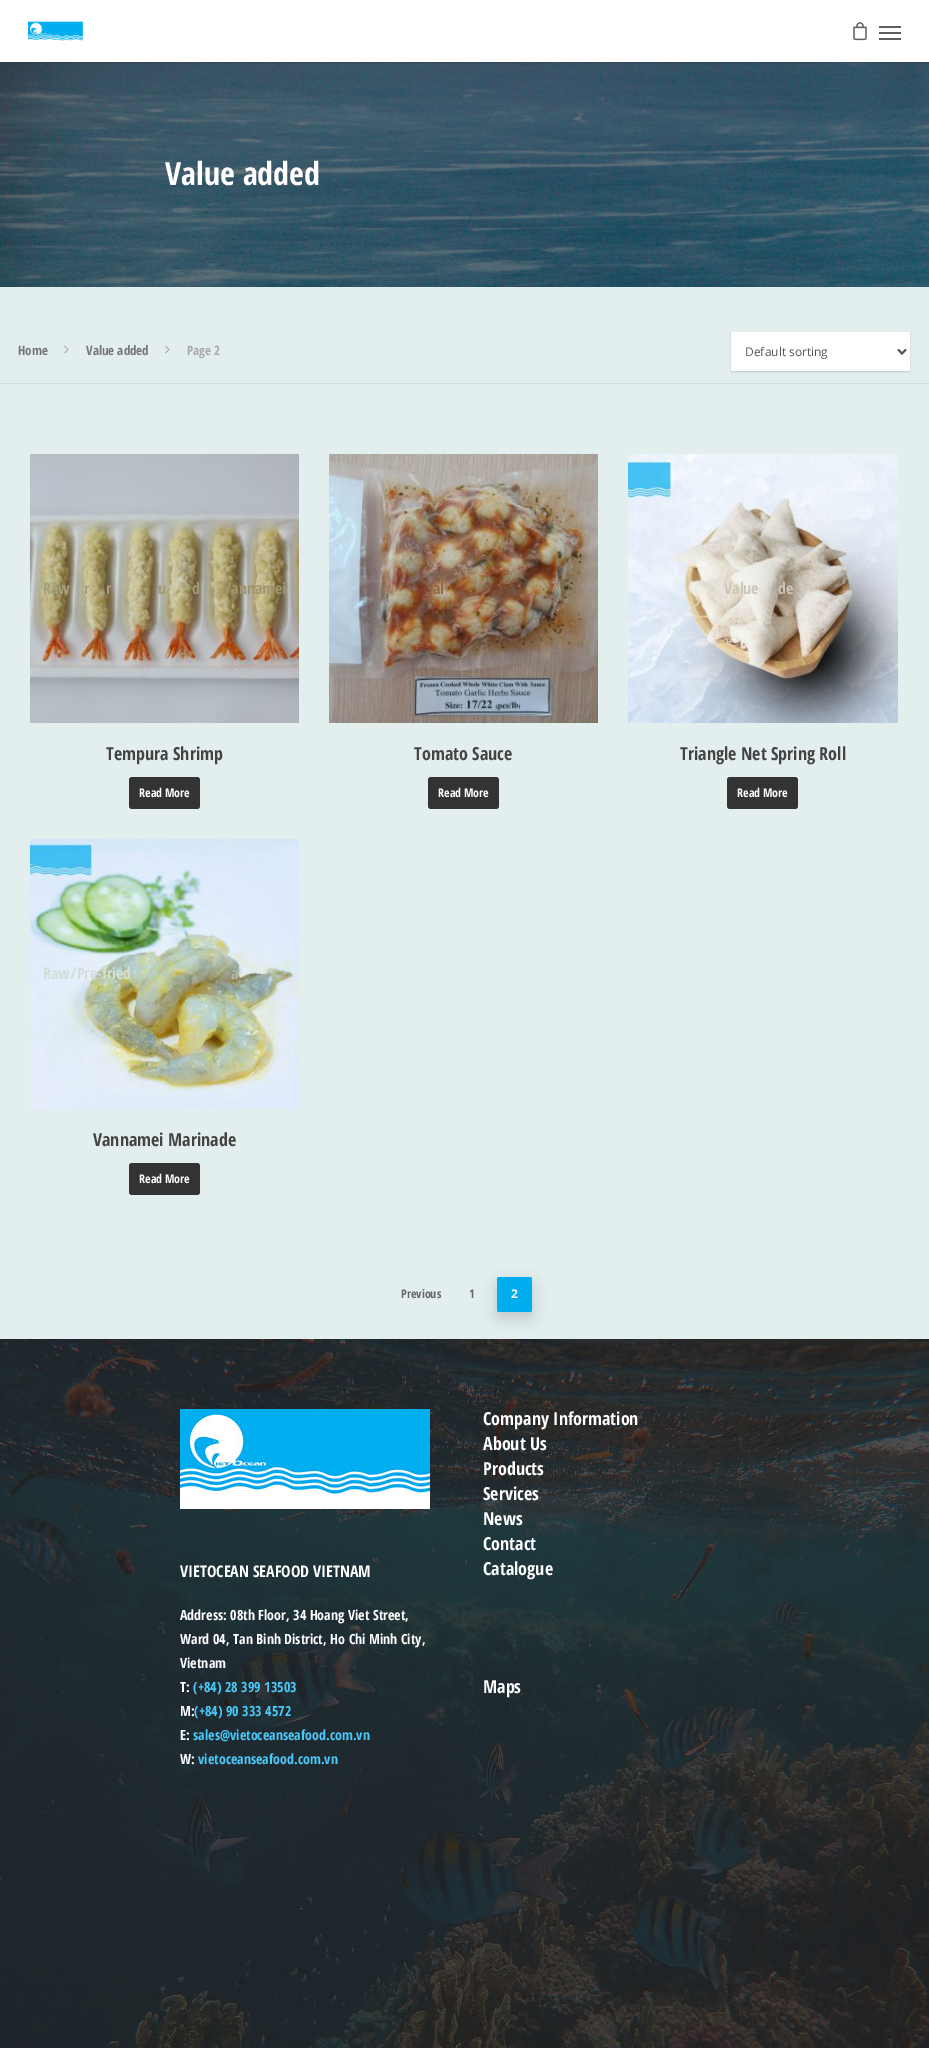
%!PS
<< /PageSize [929 2048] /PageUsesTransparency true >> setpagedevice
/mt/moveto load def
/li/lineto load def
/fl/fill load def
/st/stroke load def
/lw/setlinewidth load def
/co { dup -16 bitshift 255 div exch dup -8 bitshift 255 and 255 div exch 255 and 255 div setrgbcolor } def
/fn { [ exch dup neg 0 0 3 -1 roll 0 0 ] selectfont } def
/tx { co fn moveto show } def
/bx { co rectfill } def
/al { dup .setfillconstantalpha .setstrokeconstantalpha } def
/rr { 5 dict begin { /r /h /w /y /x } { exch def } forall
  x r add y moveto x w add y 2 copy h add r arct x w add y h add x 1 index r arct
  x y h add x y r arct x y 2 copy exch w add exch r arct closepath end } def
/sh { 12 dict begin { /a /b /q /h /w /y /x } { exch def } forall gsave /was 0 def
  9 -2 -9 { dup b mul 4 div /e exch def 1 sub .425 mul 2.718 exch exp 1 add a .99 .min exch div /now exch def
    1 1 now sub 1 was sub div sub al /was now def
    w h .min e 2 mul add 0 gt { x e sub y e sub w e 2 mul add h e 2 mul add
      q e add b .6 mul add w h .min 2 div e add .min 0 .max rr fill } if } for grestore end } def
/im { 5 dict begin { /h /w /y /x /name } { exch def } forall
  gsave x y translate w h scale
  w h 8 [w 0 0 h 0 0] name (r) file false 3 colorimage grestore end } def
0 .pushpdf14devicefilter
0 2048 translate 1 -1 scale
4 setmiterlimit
0 0 929 2048 16#FFFFFF bx
(media/3.raw) 0 62 929 225 im
16#000000 co
0 0 929 62 0 1.5 .22 sh
0 0 929 62 16#FFFFFF bx
(media/1.raw) 28 21 55 20 im
(media/2.raw) 853 22 14 19 im
879 26 22 2 16#5E5E5E bx
879 38 22 2 16#5E5E5E bx
879 32 22 2 16#5E5E5E bx
0 287 929 1052 16#E3EEEF bx
0 383 929 1 16#D3DDDE bx
(media/4.raw) 64 345 5 9 im
(media/4.raw) 165 345 5 9 im
16#000000 co
731 333 179 39 0 1 .16 sh
731 332 179 39 16#FFFFFF bx
16#555555 co
2 lw
898 349.5 mt 902 353.5 li 906 349.5 li st
(media/5.raw) 30 454 269 269 im
16#333333 co
129 777 71 32 3 rr fl
(media/6.raw) 329 454 269 269 im
428 777 71 32 3 rr fl
(media/7.raw) 628 454 270 269 im
727 777 71 32 3 rr fl
(media/8.raw) 30 839 269 270 im
129 1163 71 32 3 rr fl
(media/9.raw) 0 1339 929 709 im
16#000000 co
497 1283 35 35 2 7.5 .16 sh
16#00ADEF co
497 1277 35 35 2 rr fl
(media/10.raw) 180 1409 250 100 im
(Value added) 165 185 /OpenSansCondensed-Bold 32 16#FFFFFF tx
(Home) 18 355 /OpenSansCondensed-Bold 13 16#767676 tx
(Value added) 86 355 /OpenSansCondensed-Bold 13 16#767676 tx
(Page 2) 187 355 /OpenSansCondensed-Bold 13 16#AAAAAA tx
(Default sorting) 745 356 /OpenSans-Regular 12 16#555555 tx
(Raw) 43 594 /OpenSansCondensed-Bold 16 16#A7A07E tx
(r) 84 594 /OpenSansCondensed-Bold 16 16#A7A07E tx
(r) 106 594 /OpenSansCondensed-Bold 16 16#A7A07E tx
(u) 158 594 /OpenSansCondensed-Bold 16 16#A19877 tx
(d) 192 594 /OpenSansCondensed-Bold 16 16#A19877 tx
(Vannamei) 223 594 /OpenSansCondensed-Bold 16 16#A0946E tx
(Tempura Shrimp) 106 760 /OpenSansCondensed-Bold 18 16#444444 tx
(Read More) 139 797 /OpenSansCondensed-Bold 12 16#FFFFFF tx
(al) 433 594 /OpenSansCondensed-Bold 16 16#92694A tx
(Tomato Sauce) 414 760 /OpenSansCondensed-Bold 18 16#444444 tx
(Read More) 438 797 /OpenSansCondensed-Bold 12 16#FFFFFF tx
(Value) 724 594 /OpenSansCondensed-Bold 16 16#CBC4B8 tx
(de) 778 594 /OpenSansCondensed-Bold 16 16#CBC4B8 tx
(Triangle Net Spring Roll) 680 760 /OpenSansCondensed-Bold 18 16#444444 tx
(Read More) 737 797 /OpenSansCondensed-Bold 12 16#FFFFFF tx
(Raw/Pre-fried) 43 979 /OpenSansCondensed-Bold 16 16#D2DED8 tx
(a) 231 979 /OpenSansCondensed-Bold 16 16#AEB8A5 tx
(Vannamei Marinade) 93 1146 /OpenSansCondensed-Bold 18 16#444444 tx
(Read More) 139 1183 /OpenSansCondensed-Bold 12 16#FFFFFF tx
(Previous) 401 1298 /OpenSansCondensed-Bold 12 16#676767 tx
(1) 469 1298 /OpenSansCondensed-Bold 12 16#676767 tx
(2) 511 1298 /OpenSans-Bold 12 16#FFFFFF tx
(Company Information) 483 1425 /OpenSansCondensed-Bold 18 16#FFFFFF tx
(About Us) 483 1450 /OpenSansCondensed-Bold 18 16#FFFFFF tx
(Products) 483 1475 /OpenSansCondensed-Bold 18 16#FFFFFF tx
(Services) 483 1500 /OpenSansCondensed-Bold 18 16#FFFFFF tx
(News) 483 1525 /OpenSansCondensed-Bold 18 16#FFFFFF tx
(Contact) 483 1550 /OpenSansCondensed-Bold 18 16#FFFFFF tx
(Catalogue) 483 1575 /OpenSansCondensed-Bold 18 16#FFFFFF tx
(VIETOCEAN SEAFOOD VIETNAM) 180 1577 /OpenSansCondensed-Bold 16 16#FFFFFF tx
(Address: 08th Floor, 34 Hoang Viet Street,) 180 1620 /OpenSansCondensed-Bold 14 16#FFFFFF tx
(Ward 04, Tan Binh District, Ho Chi Minh City,) 180 1644 /OpenSansCondensed-Bold 14 16#FFFFFF tx
(Vietnam) 180 1668 /OpenSansCondensed-Bold 14 16#FFFFFF tx
(T:) 180 1692 /OpenSansCondensed-Bold 14 16#FFFFFF tx
(\(+84\) 28 399 13503) 193 1692 /OpenSansCondensed-Bold 14 16#4BCAFA tx
(M:) 180 1716 /OpenSansCondensed-Bold 14 16#FFFFFF tx
(\(+84\) 90 333 4572) 194 1716 /OpenSansCondensed-Bold 14 16#4BCAFA tx
(E:) 180 1740 /OpenSansCondensed-Bold 14 16#FFFFFF tx
(sales@vietoceanseafood.com.vn) 193 1740 /OpenSansCondensed-Bold 14 16#4BCAFA tx
(W:) 180 1764 /OpenSansCondensed-Bold 14 16#FFFFFF tx
(vietoceanseafood.com.vn) 198 1764 /OpenSansCondensed-Bold 14 16#4BCAFA tx
(Maps) 483 1693 /OpenSansCondensed-Bold 18 16#FFFFFF tx
.poppdf14devicefilter showpage
